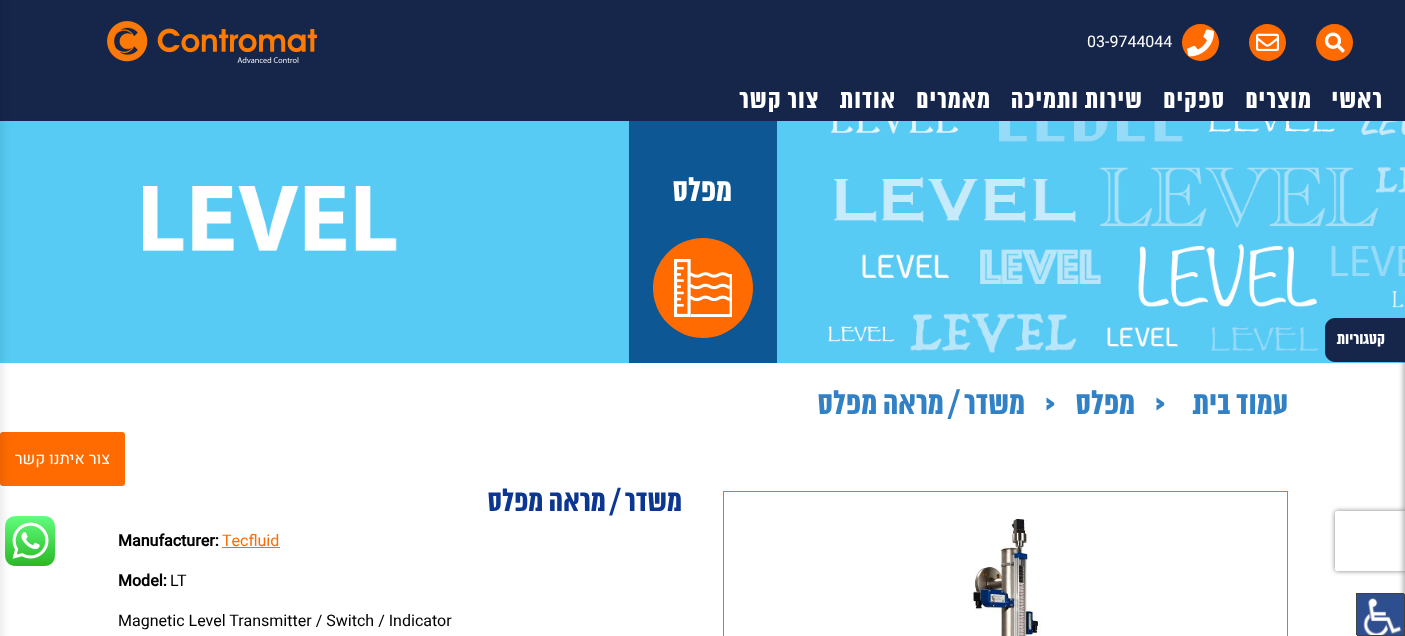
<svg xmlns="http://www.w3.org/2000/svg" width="1405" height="636">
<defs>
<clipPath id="clip1"><path d="M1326 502h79v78h-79zm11 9h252c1 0 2 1 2 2v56c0 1-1 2-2 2h-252c-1 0-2-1-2-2v-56c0-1 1-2 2-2z" clip-rule="evenodd"/></clipPath>
<clipPath id="clip2"><rect x="1357" y="594" width="48" height="42"/></clipPath>
</defs>
<rect width="100%" height="100%" fill="#fff"/>
<rect width="1405" height="121" fill="#16264a"/>
<circle cx="1334.5" cy="42.5" r="18.5" fill="#ff6b00"/>
<image x="1324" y="32" width="21" height="21" href="media/1.png"/>
<circle cx="1267.5" cy="42.5" r="18.5" fill="#ff6b00"/>
<image x="1256" y="33" width="23" height="18" href="media/2.png"/>
<circle cx="1200.5" cy="42.5" r="18.5" fill="#ff6b00"/>
<image x="1187" y="29" width="27" height="28" href="media/3.png"/>
<text x="1087" y="47" style="font-family:Heebo;font-size:16px;fill:#fff">03-9744044</text>
<text x="1383" y="108" style="font-family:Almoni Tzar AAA;font-size:26px;font-weight:bold;letter-spacing:1px;direction:rtl;fill:#fff">ראשי</text>
<text x="1312" y="108" style="font-family:Almoni Tzar AAA;font-size:26px;font-weight:bold;letter-spacing:1px;direction:rtl;fill:#fff">מוצרים</text>
<text x="1225" y="108" style="font-family:Almoni Tzar AAA;font-size:26px;font-weight:bold;letter-spacing:1px;direction:rtl;fill:#fff">ספקים</text>
<text x="1143" y="108" style="font-family:Almoni Tzar AAA;font-size:26px;font-weight:bold;letter-spacing:1px;direction:rtl;fill:#fff">שירות ותמיכה</text>
<text x="991" y="108" style="font-family:Almoni Tzar AAA;font-size:26px;font-weight:bold;letter-spacing:1px;direction:rtl;fill:#fff">מאמרים</text>
<text x="896" y="108" style="font-family:Almoni Tzar AAA;font-size:26px;font-weight:bold;letter-spacing:1px;direction:rtl;fill:#fff">אודות</text>
<text x="819" y="108" style="font-family:Almoni Tzar AAA;font-size:26px;font-weight:bold;letter-spacing:1px;direction:rtl;fill:#fff">צור קשר</text>
<image x="107" y="21" width="210" height="42" href="media/4.png"/>
<image x="0" y="121" width="1405" height="242" href="media/5.png"/>
<rect x="629" y="121" width="148" height="242" fill="#0e5795"/>
<text x="732" y="201" style="font-family:Almoni Tzar AAA;font-size:32px;font-weight:bold;direction:rtl;fill:#fff">מפלס</text>
<circle cx="703" cy="288" r="50" fill="#ff6b00"/>
<image x="674" y="259" width="58" height="58" href="media/6.png"/>
<rect y="432" width="125" height="54" rx="3" fill="#ff6b00"/>
<rect x="-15" y="-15" width="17" height="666" fill="#0000001a" filter="blur(5px)"/>
<rect x="1403" y="318" width="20" height="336" rx="10" fill="#0000004d" filter="blur(2.5px)"/>
<path d="M1335 318h70v44h-70c-5.5 0-10-4.5-10-10v-24c0-5.5 4.5-10 10-10z" fill="#16264a"/>
<text x="1385" y="344" style="font-family:Almoni Tzar AAA;font-size:16px;font-weight:bold;direction:rtl;fill:#fff">קטגוריות</text>
<rect x="723.5" y="491.5" width="564" height="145" fill="none" stroke="#ff6b00"/>
<image x="971" y="518" width="70" height="118" href="media/7.png"/>
<text x="682" y="511" style="font-family:Almoni Tzar AAA;font-size:30px;font-weight:bold;direction:rtl;fill:#0b3692">משדר / מראה מפלס</text>
<text x="222" y="546" style="font-family:Heebo;font-size:16px;fill:#ff6b00">Tecfluid</text>
<rect x="222" y="547" width="58" height="1" fill="#ff6b00"/>
<text x="118" y="546" style="font-family:Heebo;font-size:16px;font-weight:bold;fill:#000">Manufacturer:</text>
<text x="170" y="586" style="font-family:Heebo;font-size:16px;fill:#000">LT</text>
<text x="118" y="586" style="font-family:Heebo;font-size:16px;font-weight:bold;fill:#000">Model:</text>
<text x="118" y="626" style="font-family:Heebo;font-size:16px;fill:#000">Magnetic Level Transmitter / Switch / Indicator</text>
<text x="1288" y="414" style="font-family:Almoni Tzar AAA;font-size:32px;font-weight:bold;direction:rtl;fill:#3281c4">עמוד בית</text>
<text x="1155" y="414" style="font-family:Almoni Tzar AAA;font-size:32px;font-weight:bold;fill:#3281c4">&gt;</text>
<text x="1135" y="414" style="font-family:Almoni Tzar AAA;font-size:32px;font-weight:bold;direction:rtl;fill:#3281c4">מפלס</text>
<text x="1045" y="414" style="font-family:Almoni Tzar AAA;font-size:32px;font-weight:bold;fill:#3281c4">&gt;</text>
<text x="1025" y="414" style="font-family:Almoni Tzar AAA;font-size:32px;font-weight:bold;direction:rtl;fill:#3281c4">משדר / מראה מפלס</text>
<text x="110" y="464" style="font-family:Heebo;font-size:16px;direction:rtl;fill:#fff">צור איתנו קשר</text>
<image x="5" y="516" width="50" height="50" href="media/8.png"/>
<g clip-path="url(#clip1)">
<rect x="1335" y="511" width="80" height="60" rx="2" fill="#808080" filter="blur(2.5px)"/>
</g>
<path d="M1356 593v42h1v-41h47v-1z" fill="#404040"/>
<image x="1357" y="594" width="47" height="41" href="media/9.png"/>
<g clip-path="url(#clip2)">
<path d="M1258 495h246v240h-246zm98 98h48v42h-48z" fill="#404040" fill-rule="evenodd"/>
</g>
</svg>
